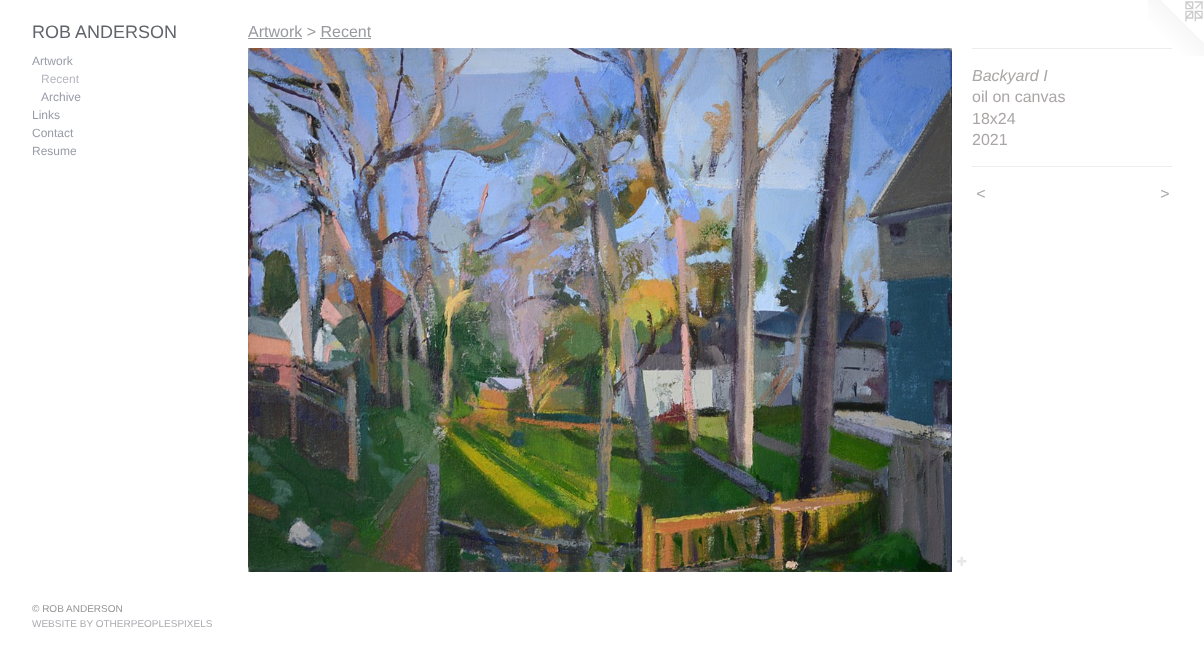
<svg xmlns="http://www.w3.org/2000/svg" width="1204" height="654">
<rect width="100%" height="100%" fill="#fff"/>
<text x="32" y="38" style="font-family:Liberation Sans;font-size:18px;fill:#61656b">ROB ANDERSON</text>
<text x="32" y="65" style="font-family:Liberation Sans;font-size:12px;fill:#999ca8">Artwork</text>
<text x="41" y="83" style="font-family:Liberation Sans;font-size:12px;fill:#b5b7bf">Recent</text>
<text x="41" y="101" style="font-family:Liberation Sans;font-size:12px;fill:#999ca8">Archive</text>
<text x="32" y="119" style="font-family:Liberation Sans;font-size:12px;fill:#999ca8">Links</text>
<text x="32" y="137" style="font-family:Liberation Sans;font-size:12px;fill:#999ca8">Contact</text>
<text x="32" y="155" style="font-family:Liberation Sans;font-size:12px;fill:#999ca8">Resume</text>
<text x="32" y="612" style="font-family:Liberation Sans;font-size:10px;fill:#979595">© ROB ANDERSON</text>
<text x="32" y="627" style="font-family:Liberation Sans;font-size:10px;fill:#abacb0">WEBSITE BY OTHERPEOPLESPIXELS</text>
<text x="248" y="37" style="font-family:Liberation Sans;font-size:16px;fill:#999a9f">Artwork &gt; Recent</text>
<rect x="248" y="38" width="54" height="1" fill="#999a9f"/>
<rect x="320" y="38" width="51" height="1" fill="#999a9f"/>
<image x="248" y="48" width="704" height="524" href="media/1.png"/>
<image x="957" y="556" width="10" height="10" href="media/2.png"/>
<image x="1148" y="0" width="56" height="56" href="media/3.png"/>
<rect x="972" y="48" width="200" height="1" fill="#eeeded"/>
<text x="972" y="81" style="font-family:Liberation Sans;font-size:16px;font-style:italic;fill:#aba6a6">Backyard I</text>
<text x="972" y="102" style="font-family:Liberation Sans;font-size:16px;fill:#aba6a6">oil on canvas</text>
<text x="972" y="124" style="font-family:Liberation Sans;font-size:16px;fill:#aba6a6">18x24</text>
<text x="972" y="145" style="font-family:Liberation Sans;font-size:16px;fill:#aba6a6">2021</text>
<rect x="972" y="166" width="200" height="1" fill="#eeeded"/>
<text x="976" y="199" style="font-family:Liberation Sans;font-size:16px;font-style:italic;letter-spacing:1px;fill:#aba6a6">&lt;</text>
<text x="1160" y="199" style="font-family:Liberation Sans;font-size:16px;font-style:italic;letter-spacing:1px;fill:#aba6a6">&gt;</text>
</svg>
